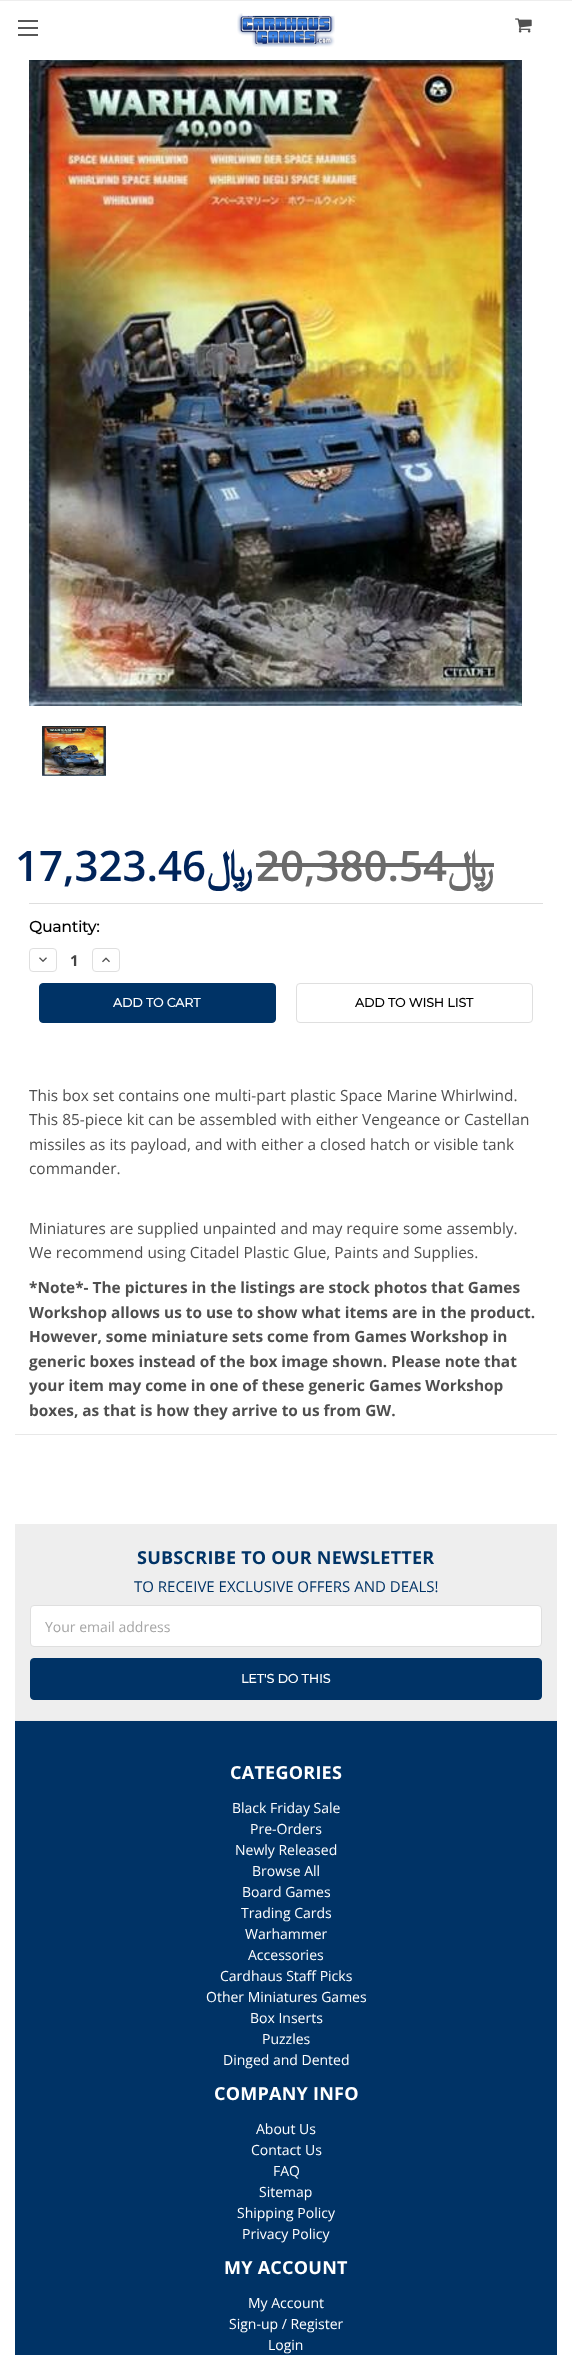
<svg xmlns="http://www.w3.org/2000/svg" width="572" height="2355">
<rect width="100%" height="100%" fill="#fff"/>
<rect width="572" height="1" fill="#eee"/>
<image x="515" y="18" width="17" height="15" href="media/1.png"/>
<rect x="18" y="27" width="20" height="2" fill="#575757"/>
<rect x="18" y="20" width="20" height="2" fill="#575757"/>
<rect x="18" y="34" width="20" height="2" fill="#575757"/>
<image x="237" y="13" width="98" height="34" href="media/2.png"/>
<image x="29" y="60" width="493" height="646" href="media/3.png"/>
<image x="42" y="726" width="64" height="50" href="media/4.png"/>
<text x="15" y="881" style="font-family:Open Sans;font-size:42px;font-weight:600;fill:#00245a">17,323.46</text>
<text x="253" y="881" style="font-family:FreeSerif;font-size:42px;font-weight:bold;direction:rtl;fill:#00245a">﷼</text>
<text x="256" y="881" style="font-family:Open Sans;font-size:42px;font-weight:600;fill:#6b6b6b">20,380.54</text>
<rect x="256" y="863" width="191" height="4" fill="#6b6b6b"/>
<rect x="447" y="863" width="47" height="4" fill="#6b6b6b"/>
<text x="494" y="881" style="font-family:FreeSerif;font-size:42px;font-weight:bold;direction:rtl;fill:#6b6b6b">﷼</text>
<rect x="29" y="903" width="514" height="1" fill="#dedede"/>
<text x="29" y="932" style="font-family:Montserrat;font-size:15.4px;font-weight:bold;fill:#000">Quantity:</text>
<rect x="29.5" y="948.5" width="27" height="23" rx="3.5" fill="none" stroke="#dfdfdf"/>
<image x="39" y="957" width="8" height="5" href="media/5.png"/>
<text x="70" y="966" style="font-family:Open Sans;font-size:15px;font-weight:bold;fill:#454545">1</text>
<rect x="92.5" y="948.5" width="27" height="23" rx="3.5" fill="none" stroke="#dfdfdf"/>
<image x="102" y="957" width="8" height="6" href="media/6.png"/>
<rect x="39.5" y="983.5" width="236" height="39" rx="3.5" fill="#036" stroke="#036"/>
<text x="113" y="1007" style="font-family:Montserrat;font-size:12.5px;font-weight:bold;fill:#fff">ADD TO CART</text>
<rect x="296.5" y="983.5" width="236" height="39" rx="3.5" fill="none" stroke="#dfdfdf"/>
<text x="355" y="1007" style="font-family:Montserrat;font-size:12.5px;font-weight:bold;fill:#000">ADD TO WISH LIST</text>
<text x="29" y="1101" style="font-family:Open Sans;font-size:15.4px;fill:#4f4f4f">This box set contains one multi-part plastic Space Marine Whirlwind.</text>
<text x="29" y="1125" style="font-family:Open Sans;font-size:15.4px;fill:#4f4f4f">This 85-piece kit can be assembled with either Vengeance or Castellan</text>
<text x="29" y="1150" style="font-family:Open Sans;font-size:15.4px;fill:#4f4f4f">missiles as its payload, and with either a closed hatch or visible tank</text>
<text x="29" y="1174" style="font-family:Open Sans;font-size:15.4px;fill:#4f4f4f">commander.</text>
<text x="29" y="1234" style="font-family:Open Sans;font-size:15.4px;fill:#4f4f4f">Miniatures are supplied unpainted and may require some assembly.</text>
<text x="29" y="1258" style="font-family:Open Sans;font-size:15.4px;fill:#4f4f4f">We recommend using Citadel Plastic Glue, Paints and Supplies.</text>
<text x="29" y="1293" style="font-family:Open Sans;font-size:15.4px;font-weight:bold;fill:#4f4f4f">*Note*- The pictures in the listings are stock photos that Games</text>
<text x="29" y="1318" style="font-family:Open Sans;font-size:15.4px;font-weight:bold;fill:#4f4f4f">Workshop allows us to use to show what items are in the product.</text>
<text x="29" y="1342" style="font-family:Open Sans;font-size:15.4px;font-weight:bold;fill:#4f4f4f">However, some miniature sets come from Games Workshop in</text>
<text x="29" y="1367" style="font-family:Open Sans;font-size:15.4px;font-weight:bold;fill:#4f4f4f">generic boxes instead of the box image shown. Please note that</text>
<text x="29" y="1391" style="font-family:Open Sans;font-size:15.4px;font-weight:bold;fill:#4f4f4f">your item may come in one of these generic Games Workshop</text>
<text x="29" y="1416" style="font-family:Open Sans;font-size:15.4px;font-weight:bold;fill:#4f4f4f">boxes, as that is how they arrive to us from GW.</text>
<rect x="15" y="1434" width="542" height="1" fill="#e8e8e8"/>
<rect x="15" y="1524" width="542" height="196" fill="#eee"/>
<text x="137" y="1564" style="font-family:Open Sans;font-size:18px;font-weight:bold;letter-spacing:0.25px;fill:#036">SUBSCRIBE TO OUR NEWSLETTER</text>
<text x="134" y="1592" style="font-family:Open Sans;font-size:15px;fill:#036">TO RECEIVE EXCLUSIVE OFFERS AND DEALS!</text>
<rect x="30.5" y="1605.5" width="511" height="41" rx="3.5" fill="#fff" stroke="#dfdfdf"/>
<text x="45" y="1632" style="font-family:Open Sans;font-size:14px;fill:#a5a5a5">Your email address</text>
<rect x="30.5" y="1658.5" width="511" height="41" rx="3.5" fill="#036" stroke="#036"/>
<text x="241" y="1683" style="font-family:Montserrat;font-size:12.5px;font-weight:bold;fill:#fff">LET'S DO THIS</text>
<rect x="15" y="1721" width="542" height="634" fill="#036"/>
<rect x="15" y="1720" width="542" height="1" fill="#e8e8e8"/>
<text x="230" y="1779" style="font-family:Open Sans;font-size:18px;font-weight:bold;letter-spacing:0.25px;fill:#fff">CATEGORIES</text>
<text x="232" y="1813" style="font-family:Open Sans;font-size:14px;fill:#fff">Black Friday Sale</text>
<text x="250" y="1834" style="font-family:Open Sans;font-size:14px;fill:#fff">Pre-Orders</text>
<text x="235" y="1855" style="font-family:Open Sans;font-size:14px;fill:#fff">Newly Released</text>
<text x="252" y="1876" style="font-family:Open Sans;font-size:14px;fill:#fff">Browse All</text>
<text x="242" y="1897" style="font-family:Open Sans;font-size:14px;fill:#fff">Board Games</text>
<text x="241" y="1918" style="font-family:Open Sans;font-size:14px;fill:#fff">Trading Cards</text>
<text x="245" y="1939" style="font-family:Open Sans;font-size:14px;fill:#fff">Warhammer</text>
<text x="248" y="1960" style="font-family:Open Sans;font-size:14px;fill:#fff">Accessories</text>
<text x="220" y="1981" style="font-family:Open Sans;font-size:14px;fill:#fff">Cardhaus Staff Picks</text>
<text x="206" y="2002" style="font-family:Open Sans;font-size:14px;fill:#fff">Other Miniatures Games</text>
<text x="250" y="2023" style="font-family:Open Sans;font-size:14px;fill:#fff">Box Inserts</text>
<text x="262" y="2044" style="font-family:Open Sans;font-size:14px;fill:#fff">Puzzles</text>
<text x="223" y="2065" style="font-family:Open Sans;font-size:14px;fill:#fff">Dinged and Dented</text>
<text x="214" y="2100" style="font-family:Open Sans;font-size:18px;font-weight:bold;letter-spacing:0.25px;fill:#fff">COMPANY INFO</text>
<text x="256" y="2134" style="font-family:Open Sans;font-size:14px;fill:#fff">About Us</text>
<text x="251" y="2155" style="font-family:Open Sans;font-size:14px;fill:#fff">Contact Us</text>
<text x="273" y="2176" style="font-family:Open Sans;font-size:14px;fill:#fff">FAQ</text>
<text x="259" y="2197" style="font-family:Open Sans;font-size:14px;fill:#fff">Sitemap</text>
<text x="237" y="2218" style="font-family:Open Sans;font-size:14px;fill:#fff">Shipping Policy</text>
<text x="242" y="2239" style="font-family:Open Sans;font-size:14px;fill:#fff">Privacy Policy</text>
<text x="224" y="2274" style="font-family:Open Sans;font-size:18px;font-weight:bold;letter-spacing:0.25px;fill:#fff">MY ACCOUNT</text>
<text x="248" y="2308" style="font-family:Open Sans;font-size:14px;fill:#fff">My Account</text>
<text x="229" y="2329" style="font-family:Open Sans;font-size:14px;fill:#fff">Sign-up / Register</text>
<text x="268" y="2350" style="font-family:Open Sans;font-size:14px;fill:#fff">Login</text>
</svg>
